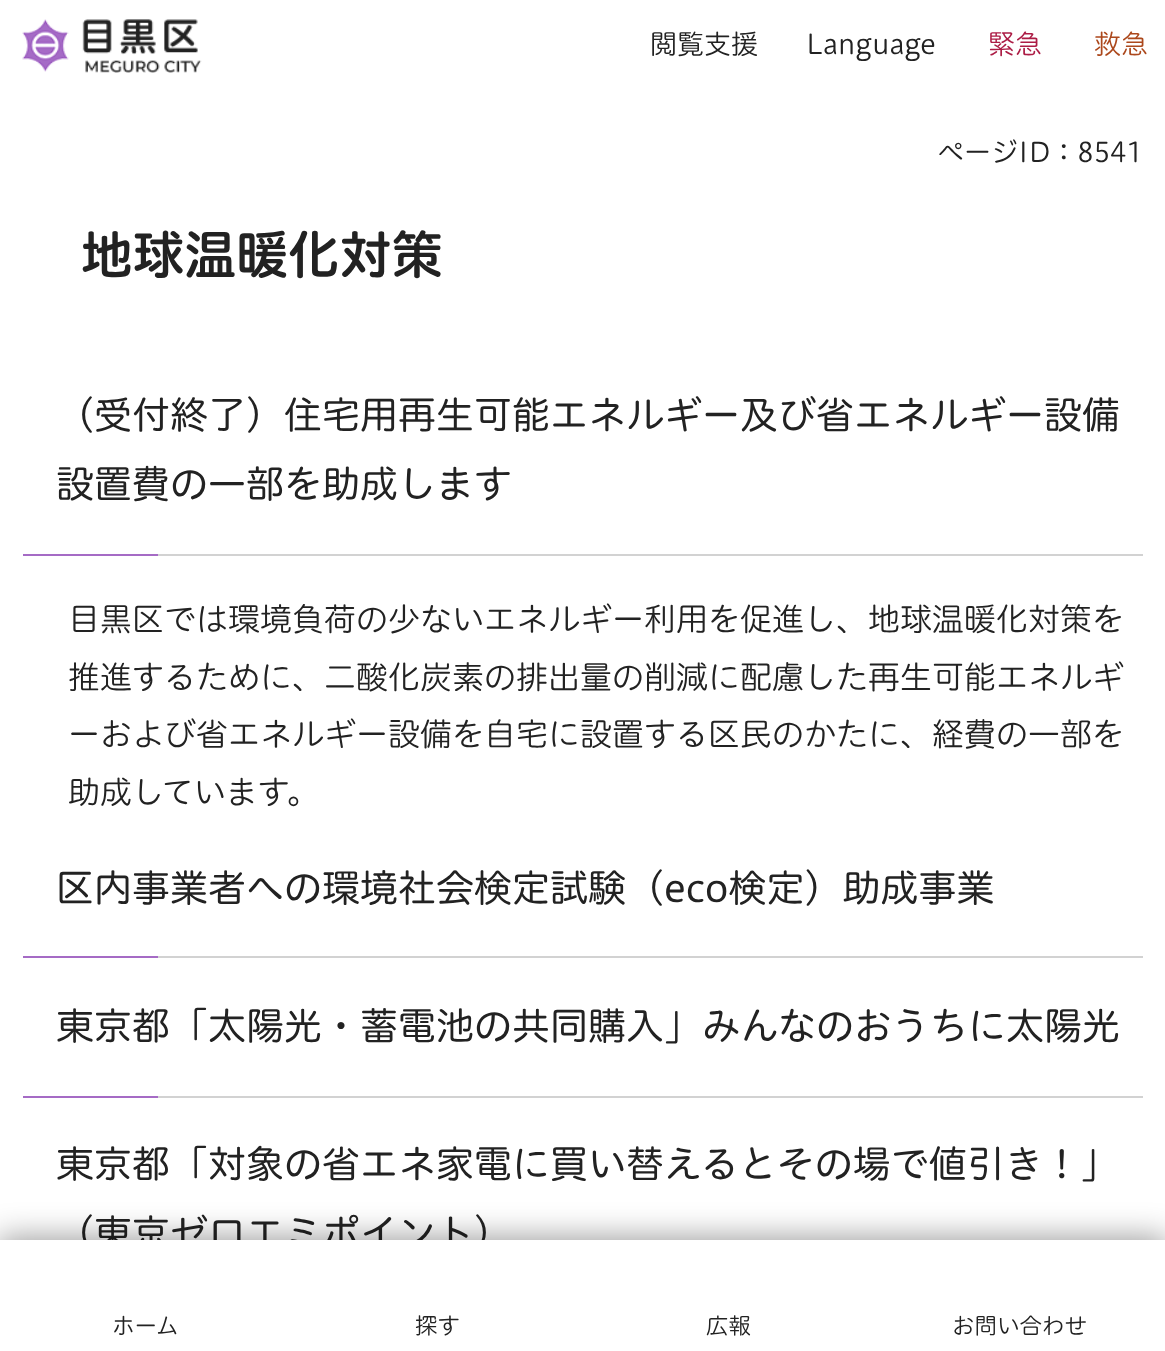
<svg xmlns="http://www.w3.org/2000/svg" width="1165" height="1351">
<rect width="100%" height="100%" fill="#fff"/>
<image x="22" y="19" width="180" height="54" href="media/1.png"/>
<text x="650" y="54" style="font-family:'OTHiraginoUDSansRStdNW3';font-size:27px;font-weight:300;fill:#222">閲覧支援</text>
<text x="806" y="54" style="font-family:'OTHiraginoUDSansRStdNW3';font-size:27px;font-weight:300;fill:#222">Language</text>
<text x="988" y="54" style="font-family:'OTHiraginoUDSansRStdNW3';font-size:27px;font-weight:300;fill:#ac1c45">緊急</text>
<text x="1094" y="54" style="font-family:'OTHiraginoUDSansRStdNW3';font-size:27px;font-weight:300;fill:#ac481c">救急</text>
<text x="937" y="162" style="font-family:'OTHiraginoUDSansRStdNW3';font-size:27px;font-weight:300;fill:#222">ページID：8541</text>
<text x="81" y="274" style="font-family:'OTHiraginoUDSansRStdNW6';font-size:51.75px;font-weight:600;fill:#222">地球温暖化対策</text>
<rect x="158" y="554" width="985" height="2" fill="#d2d2d2"/>
<text x="56" y="429" style="font-family:'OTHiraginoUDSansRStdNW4';font-size:38px;fill:#222">（受付終了）住宅用再生可能エネルギー及び省エネルギー設備</text>
<text x="56" y="498" style="font-family:'OTHiraginoUDSansRStdNW4';font-size:38px;fill:#222">設置費の一部を助成します</text>
<rect x="23" y="554" width="135" height="2" fill="#a56bc5"/>
<text x="68" y="631" style="font-family:'OTHiraginoUDSansRStdNW3';font-size:32px;font-weight:300;fill:#222">目黒区では環境負荷の少ないエネルギー利用を促進し、地球温暖化対策を</text>
<text x="68" y="689" style="font-family:'OTHiraginoUDSansRStdNW3';font-size:32px;font-weight:300;fill:#222">推進するために、二酸化炭素の排出量の削減に配慮した再生可能エネルギ</text>
<text x="68" y="746" style="font-family:'OTHiraginoUDSansRStdNW3';font-size:32px;font-weight:300;fill:#222">ーおよび省エネルギー設備を自宅に設置する区民のかたに、経費の一部を</text>
<text x="68" y="804" style="font-family:'OTHiraginoUDSansRStdNW3';font-size:32px;font-weight:300;fill:#222">助成しています。</text>
<rect x="158" y="956" width="985" height="2" fill="#d2d2d2"/>
<text x="56" y="902" style="font-family:'OTHiraginoUDSansRStdNW4';font-size:38px;fill:#222">区内事業者への環境社会検定試験（eco検定）助成事業</text>
<rect x="23" y="956" width="135" height="2" fill="#a56bc5"/>
<rect x="158" y="1096" width="985" height="2" fill="#d2d2d2"/>
<text x="56" y="1040" style="font-family:'OTHiraginoUDSansRStdNW4';font-size:38px;fill:#222">東京都「太陽光・蓄電池の共同購入」みんなのおうちに太陽光</text>
<rect x="23" y="1096" width="135" height="2" fill="#a56bc5"/>
<text x="56" y="1178" style="font-family:'OTHiraginoUDSansRStdNW4';font-size:38px;fill:#222">東京都「対象の省エネ家電に買い替えるとその場で値引き！」</text>
<text x="56" y="1247" style="font-family:'OTHiraginoUDSansRStdNW4';font-size:38px;fill:#222">（東京ゼロエミポイント）</text>
<rect x="-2" y="1238" width="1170" height="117" fill="#00000066" filter="blur(16px)"/>
<rect y="1240" width="1165" height="111" fill="#fff"/>
<text x="112" y="1334" style="font-family:'OTHiraginoUDSansRStdNW3';font-size:22.5px;font-weight:300;fill:#222">ホーム</text>
<text x="415" y="1334" style="font-family:'OTHiraginoUDSansRStdNW3';font-size:22.5px;font-weight:300;fill:#222">探す</text>
<text x="706" y="1334" style="font-family:'OTHiraginoUDSansRStdNW3';font-size:22.5px;font-weight:300;fill:#222">広報</text>
<text x="952" y="1334" style="font-family:'OTHiraginoUDSansRStdNW3';font-size:22.5px;font-weight:300;fill:#222">お問い合わせ</text>
</svg>
